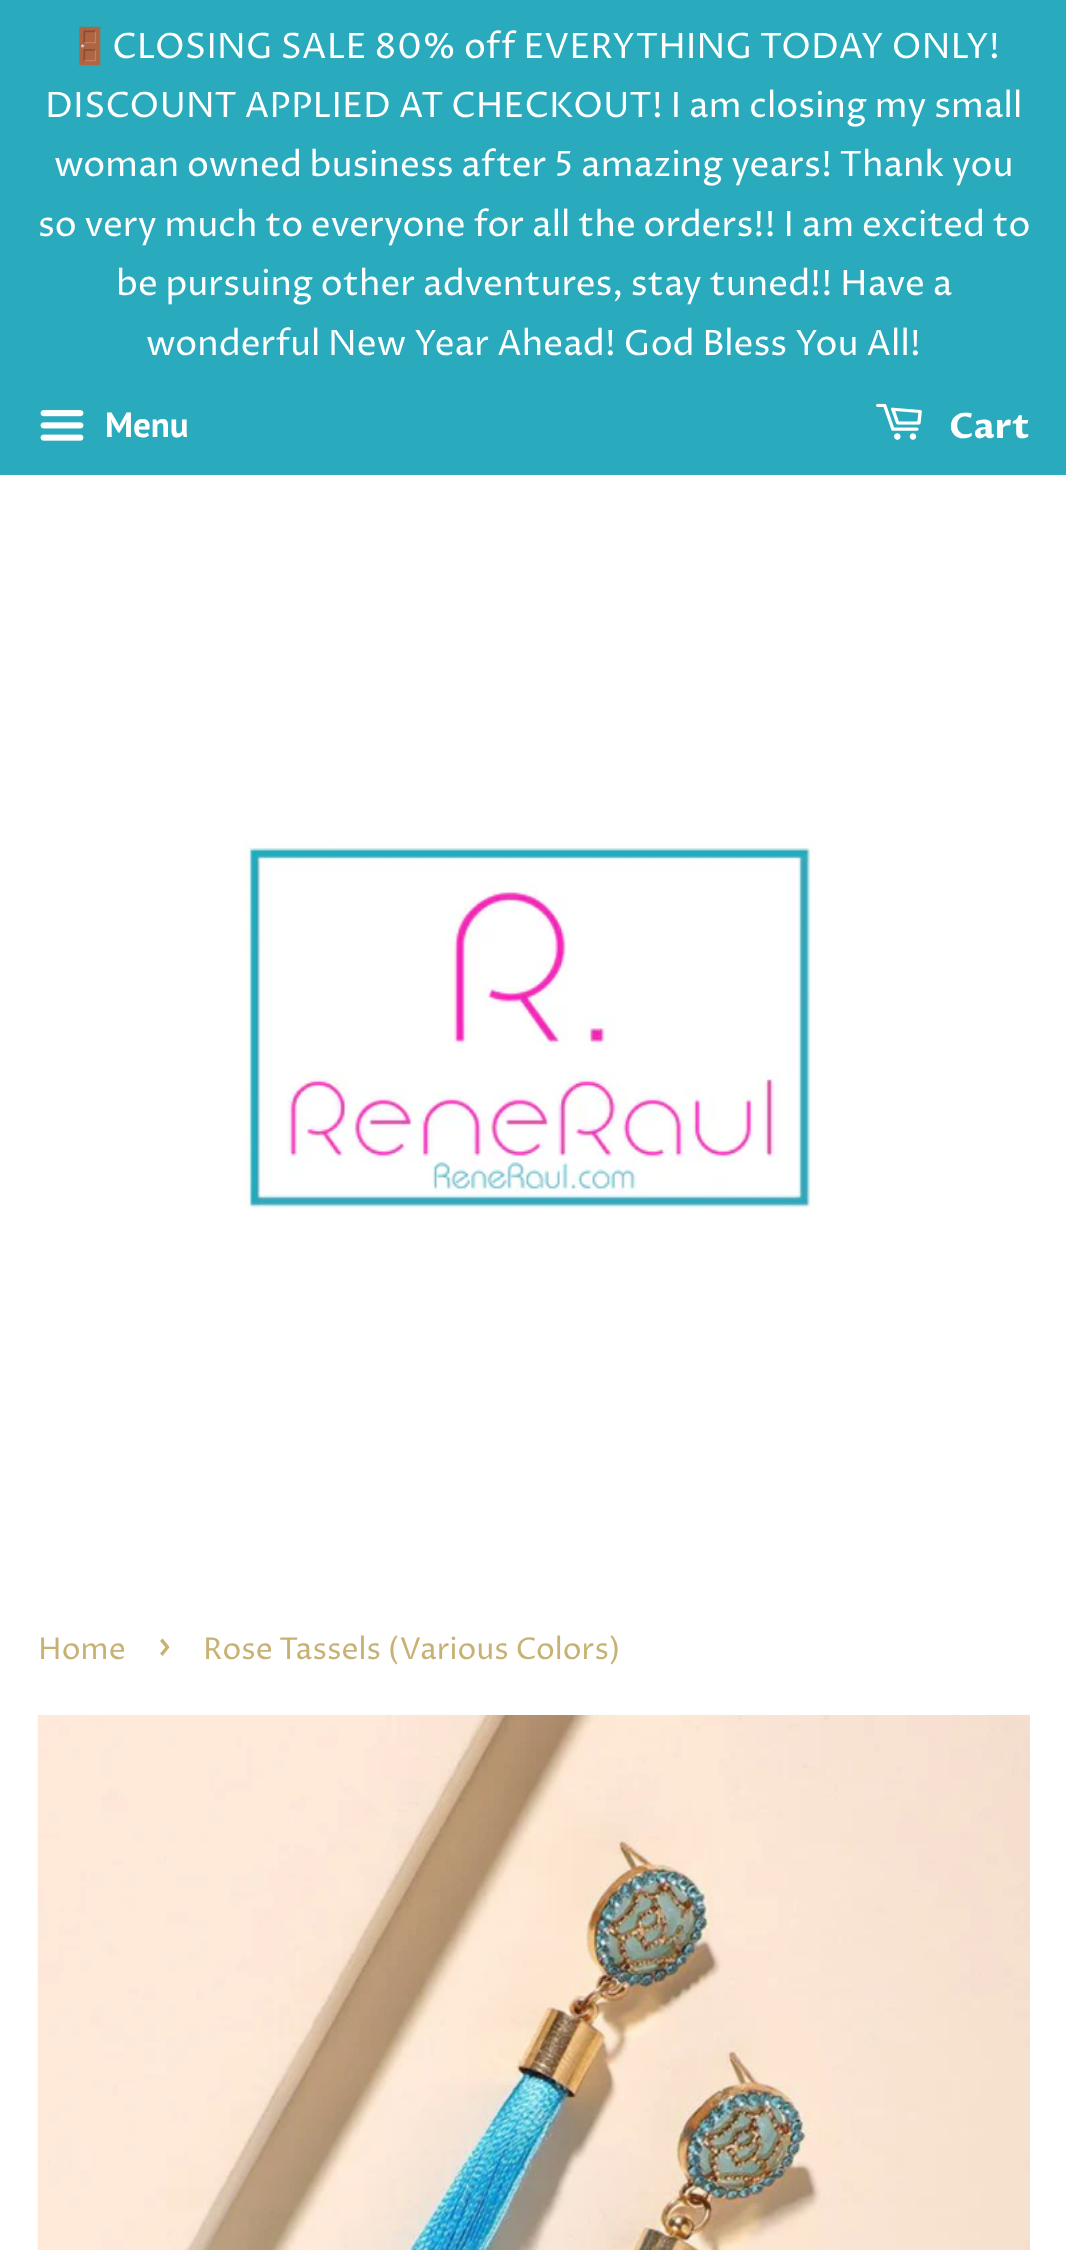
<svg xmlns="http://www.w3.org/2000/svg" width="1066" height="2250">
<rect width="100%" height="100%" fill="#fff"/>
<rect width="1066" height="475" fill="#29abbd"/>
<text x="68" y="58" style="font-family:Noto Color Emoji;font-size:35px;fill:#fff">🚪</text>
<text x="112" y="58" style="font-family:Proza Libre;font-size:35px;fill:#fff">CLOSING SALE 80% off EVERYTHING TODAY ONLY!</text>
<text x="45" y="117" style="font-family:Proza Libre;font-size:35px;fill:#fff">DISCOUNT APPLIED AT CHECKOUT! I am closing my small</text>
<text x="54" y="176" style="font-family:Proza Libre;font-size:35px;fill:#fff">woman owned business after 5 amazing years! Thank you</text>
<text x="38" y="236" style="font-family:Proza Libre;font-size:35px;fill:#fff">so very much to everyone for all the orders!! I am excited to</text>
<text x="116" y="295" style="font-family:Proza Libre;font-size:35px;fill:#fff">be pursuing other adventures, stay tuned!! Have a</text>
<text x="146" y="355" style="font-family:Proza Libre;font-size:35px;fill:#fff">wonderful New Year Ahead! God Bless You All!</text>
<image x="40" y="410" width="44" height="31" href="media/1.png"/>
<text x="105" y="437" style="font-family:PT Sans;font-size:35px;font-weight:bold;fill:#fff">Menu</text>
<image x="876" y="403" width="46" height="37" href="media/2.png"/>
<text x="949" y="438" style="font-family:Proza Libre;font-size:35px;font-weight:bold;fill:#fff">Cart</text>
<image x="244" y="840" width="573" height="369" href="media/3.png"/>
<text x="38" y="1659" style="font-family:Proza Libre;font-size:30px;fill:#c8b273">Home</text>
<text x="157" y="1659" style="font-family:Proza Libre;font-size:42px;fill:#c8b273">›</text>
<text x="203" y="1659" style="font-family:Proza Libre;font-size:30px;fill:#c8b273">Rose Tassels (Various Colors)</text>
<image x="37" y="1715" width="993" height="535" href="media/4.png"/>
</svg>
